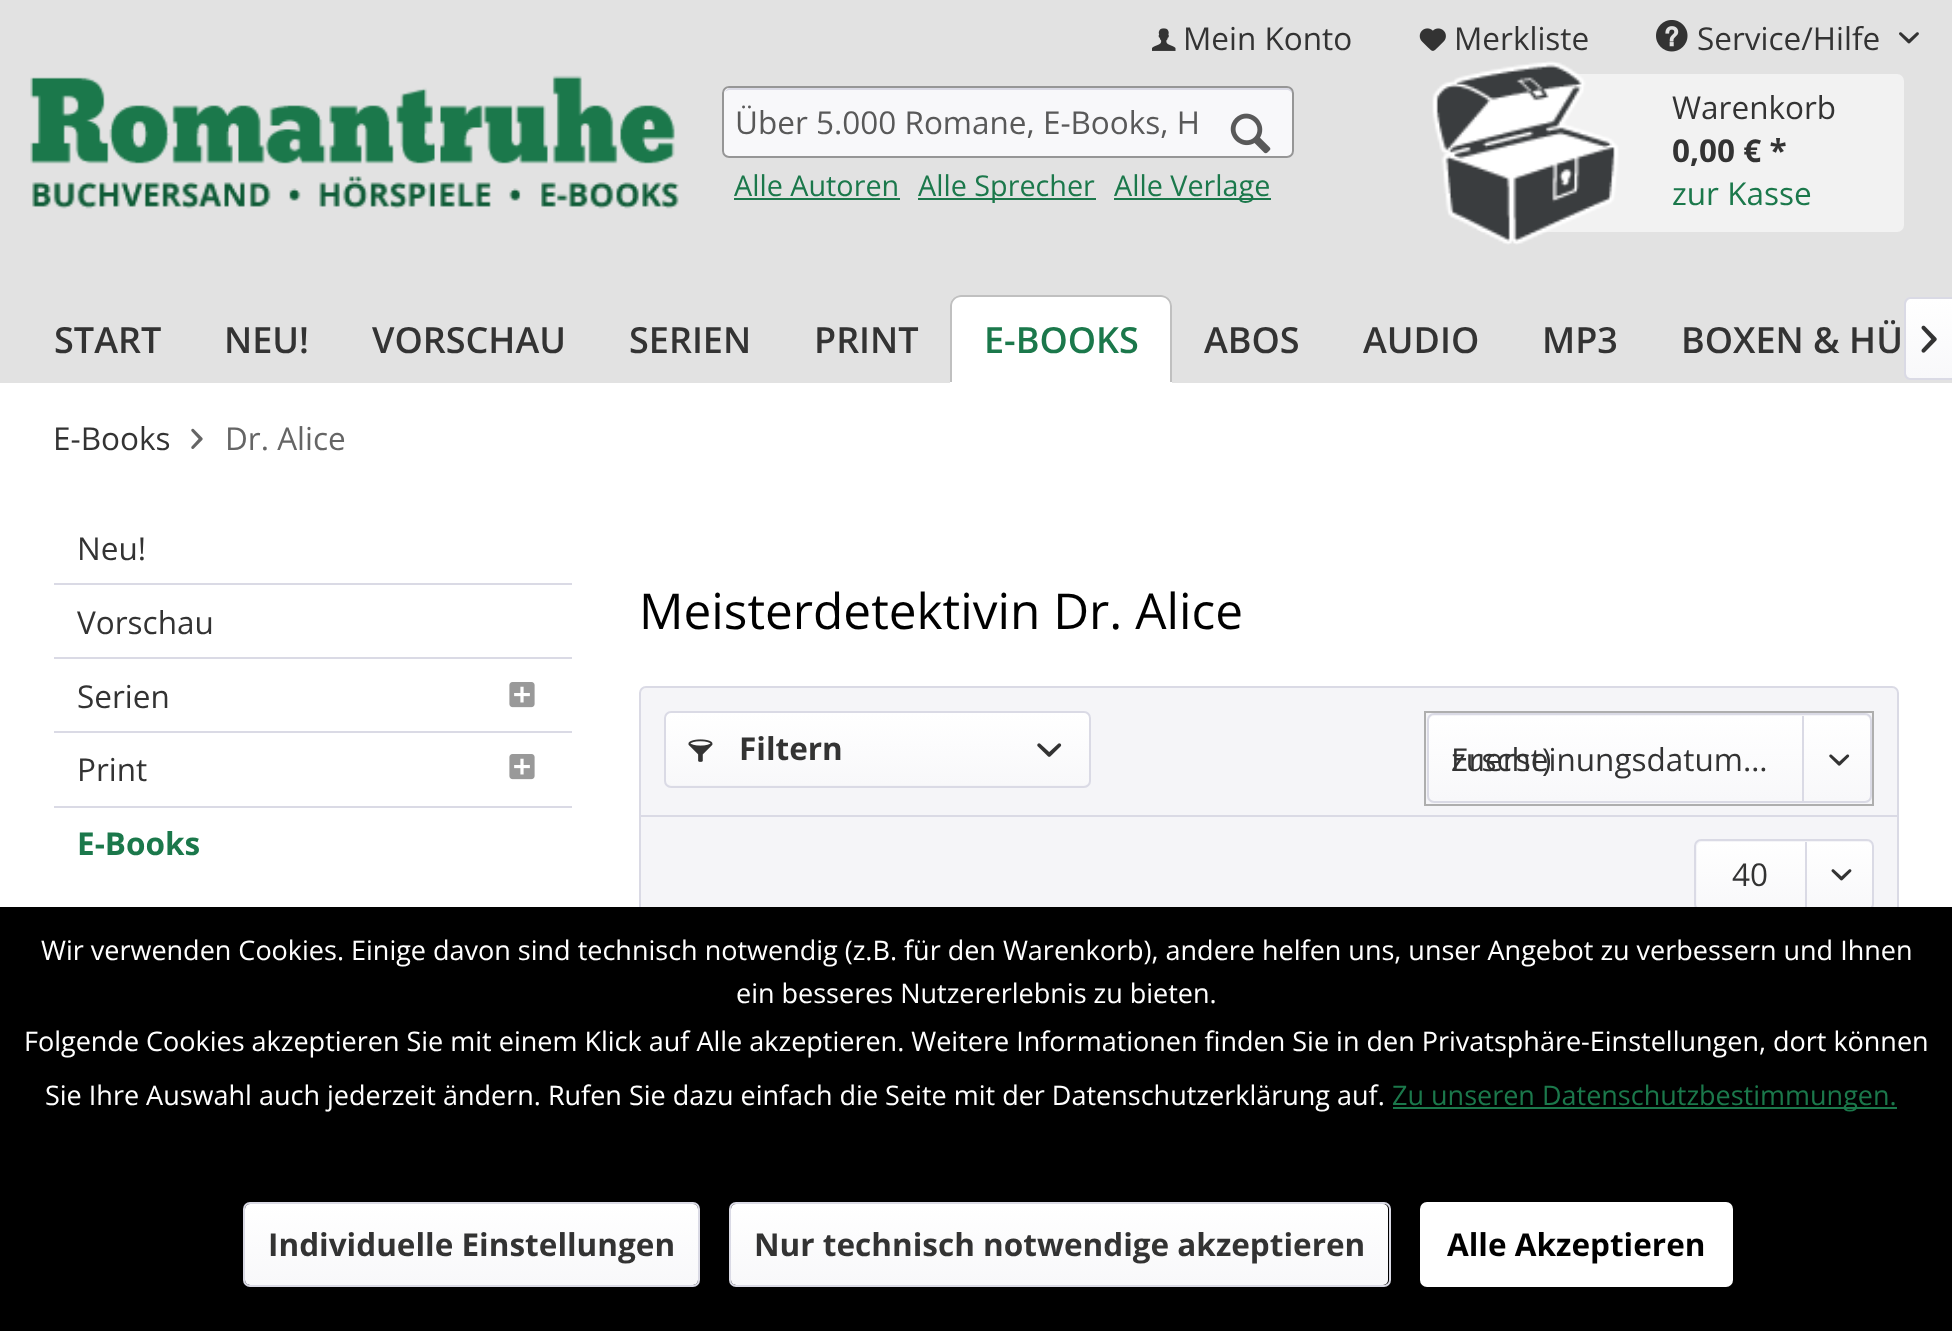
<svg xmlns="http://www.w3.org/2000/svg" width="1952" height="1331">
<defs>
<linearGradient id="g1" gradientUnits="userSpaceOnUse" x1="1929" y1="299" x2="1929" y2="378"><stop offset="0" stop-color="#fff"/><stop offset="1" stop-color="#f8f8fa"/></linearGradient>
<linearGradient id="g2" gradientUnits="userSpaceOnUse" x1="878" y1="713" x2="878" y2="785"><stop offset="0" stop-color="#fff"/><stop offset="1" stop-color="#f8f8fa"/></linearGradient>
<linearGradient id="g3" gradientUnits="userSpaceOnUse" x1="1649" y1="716" x2="1649" y2="801"><stop offset="0" stop-color="#fff"/><stop offset="1" stop-color="#f8f8fa"/></linearGradient>
<linearGradient id="g4" gradientUnits="userSpaceOnUse" x1="1784" y1="842" x2="1784" y2="909"><stop offset="0" stop-color="#fff"/><stop offset="1" stop-color="#f8f8fa"/></linearGradient>
<linearGradient id="g5" gradientUnits="userSpaceOnUse" x1="471" y1="1204" x2="471" y2="1285"><stop offset="0" stop-color="#fff"/><stop offset="1" stop-color="#f8f8fa"/></linearGradient>
<linearGradient id="g6" gradientUnits="userSpaceOnUse" x1="1060" y1="1204" x2="1060" y2="1285"><stop offset="0" stop-color="#fff"/><stop offset="1" stop-color="#f8f8fa"/></linearGradient>
</defs>
<rect width="100%" height="100%" fill="#fff"/>
<rect width="1952" height="383" fill="#e2e2e2"/>
<image x="1152" y="28" width="24" height="23" href="media/1.png"/>
<text x="1183" y="50" style="font-family:Open Sans;font-size:31.5px;fill:#333">Mein Konto</text>
<image x="1419" y="28" width="27" height="23" href="media/2.png"/>
<text x="1454" y="50" style="font-family:Open Sans;font-size:31.5px;fill:#333">Merkliste</text>
<image x="1656" y="20" width="32" height="32" href="media/3.png"/>
<text x="1697" y="50" style="font-family:Open Sans;font-size:31.5px;fill:#333">Service/Hilfe</text>
<image x="1899" y="32" width="20" height="12" href="media/4.png"/>
<image x="30" y="75" width="649" height="134" href="media/5.png"/>
<rect x="722" y="86" width="572" height="72" rx="7" fill="#f8f8fa"/>
<path d="M729 90h558c2 0 5 2 5 4v-1c0-3-2-5-5-5h-557c-2 0-4 2-5 4c1-1 3-2 4-2z" fill="#dadae5"/>
<rect x="723" y="87" width="570" height="70" rx="6" fill="none" stroke="#969696" stroke-width="2"/>
<text x="735" y="134" style="font-family:Open Sans;font-size:31.5px;fill:#595959">Über 5.000 Romane, E-Books, H</text>
<image x="1230" y="113" width="41" height="41" href="media/6.png"/>
<text x="734" y="196" style="font-family:Open Sans;font-size:28.75px;fill:#1b784b">Alle Autoren</text>
<rect x="734" y="198" width="166" height="2" fill="#1b784b"/>
<rect x="918" y="198" width="178" height="2" fill="#1b784b"/>
<text x="918" y="196" style="font-family:Open Sans;font-size:28.75px;fill:#1b784b">Alle Sprecher</text>
<rect x="1114" y="198" width="157" height="2" fill="#1b784b"/>
<text x="1114" y="196" style="font-family:Open Sans;font-size:28.75px;fill:#1b784b">Alle Verlage</text>
<rect x="1476" y="74" width="428" height="158" rx="7" fill="#f2f2f2"/>
<image x="1432" y="61" width="187" height="184" href="media/7.png"/>
<text x="1672" y="119" style="font-family:Open Sans;font-size:31.5px;fill:#333">Warenkorb</text>
<text x="1672" y="162" style="font-family:Open Sans;font-size:31.5px;font-weight:bold;fill:#333">0,00 € *</text>
<text x="1672" y="205" style="font-family:Open Sans;font-size:31.5px;fill:#1b784b">zur Kasse</text>
<text x="54" y="353" style="font-family:Open Sans;font-size:36px;font-weight:600;fill:#333">START</text>
<text x="224" y="353" style="font-family:Open Sans;font-size:36px;font-weight:600;fill:#333">NEU!</text>
<text x="372" y="353" style="font-family:Open Sans;font-size:36px;font-weight:600;fill:#333">VORSCHAU</text>
<text x="629" y="353" style="font-family:Open Sans;font-size:36px;font-weight:600;fill:#333">SERIEN</text>
<text x="814" y="353" style="font-family:Open Sans;font-size:36px;font-weight:600;fill:#333">PRINT</text>
<path d="M961 295h200c6 0 11 5 11 11v77h-222v-77c0-6 5-11 11-11z" fill="#fff"/>
<path d="M961 295h200c6 0 11 5 11 11v76h-222v-76c0-6 5-11 11-11zm0 2h200c5 0 9 4 9 9v76h-218v-76c0-5 4-9 9-9z" fill="#c0c0c0" fill-rule="evenodd"/>
<text x="984" y="353" style="font-family:Open Sans;font-size:36px;font-weight:600;fill:#1b784b">E-BOOKS</text>
<text x="1204" y="353" style="font-family:Open Sans;font-size:36px;font-weight:600;fill:#333">ABOS</text>
<text x="1363" y="353" style="font-family:Open Sans;font-size:36px;font-weight:600;fill:#333">AUDIO</text>
<text x="1542" y="353" style="font-family:Open Sans;font-size:36px;font-weight:600;fill:#333">MP3</text>
<text x="1681" y="353" style="font-family:Open Sans;font-size:36px;font-weight:600;fill:#333">BOXEN &amp; HÜ</text>
<path d="M1911 299h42v79h-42c-3 0-5-2-5-5v-69c0-3 2-5 5-5z" fill="url(#g1)"/>
<path d="M1910 297h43v83h-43c-3 0-6-3-6-6v-70c0-4 3-7 6-7zm0 2h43v79h-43c-2 0-4-2-4-4v-70c0-3 2-5 4-5z" fill="#dadae5" fill-rule="evenodd"/>
<image x="1921" y="325" width="16" height="28" href="media/8.png"/>
<text x="53" y="450" style="font-family:Open Sans;font-size:31.5px;fill:#333">E-Books</text>
<image x="191" y="428" width="12" height="21" href="media/9.png"/>
<text x="225" y="450" style="font-family:Open Sans;font-size:31.5px;fill:#656565">Dr. Alice</text>
<rect x="54" y="583" width="518" height="2" fill="#dadae5"/>
<text x="77" y="560" style="font-family:Open Sans;font-size:31.5px;fill:#333">Neu!</text>
<rect x="54" y="657" width="518" height="2" fill="#dadae5"/>
<text x="77" y="634" style="font-family:Open Sans;font-size:31.5px;fill:#333">Vorschau</text>
<rect x="54" y="731" width="518" height="2" fill="#dadae5"/>
<text x="77" y="708" style="font-family:Open Sans;font-size:31.5px;fill:#333">Serien</text>
<image x="509" y="682" width="26" height="26" href="media/10.png"/>
<rect x="54" y="806" width="518" height="2" fill="#dadae5"/>
<text x="77" y="781" style="font-family:Open Sans;font-size:31.5px;fill:#333">Print</text>
<image x="509" y="754" width="26" height="26" href="media/10.png"/>
<text x="77" y="855" style="font-family:Open Sans;font-size:31.5px;font-weight:bold;fill:#1b784b">E-Books</text>
<text x="639" y="629" style="font-family:Open Sans;font-size:49.5px;fill:#000">Meisterdetektivin Dr. Alice</text>
<rect x="640" y="687" width="1258" height="248" rx="6" fill="#f5f5f8" stroke="#dadae5" stroke-width="2"/>
<rect x="666" y="713" width="423" height="72" rx="5" fill="url(#g2)"/>
<rect x="665" y="712" width="425" height="75" rx="6" fill="none" stroke="#dadae5" stroke-width="2"/>
<image x="688" y="739" width="25" height="23" href="media/11.png"/>
<text x="739" y="760" style="font-family:Open Sans;font-size:31.5px;font-weight:bold;fill:#333">Filtern</text>
<image x="1037" y="743" width="25" height="14" href="media/12.png"/>
<rect x="1425" y="712" width="448" height="93" fill="none" stroke="#aeaeae" stroke-width="2"/>
<rect x="1429" y="716" width="441" height="85" rx="5" fill="url(#g3)"/>
<rect x="1428" y="714" width="443" height="88" rx="6" fill="none" stroke="#dadae5" stroke-width="2"/>
<text x="1451" y="771" word-spacing="50" style="font-family:Open Sans;font-size:31.5px;fill:#333">Erscheinungsdatum…</text>
<text x="1451" y="771" style="font-family:Open Sans;font-size:31.5px;fill:#333">zuerst)</text>
<rect x="1802" y="716" width="2" height="87" fill="#dadae5"/>
<image x="1829" y="754" width="21" height="12" href="media/13.png"/>
<rect x="641" y="815" width="1256" height="2" fill="#dadae5"/>
<rect x="1697" y="842" width="175" height="67" rx="5" fill="url(#g4)"/>
<rect x="1695" y="840" width="178" height="70" rx="6" fill="none" stroke="#dadae5" stroke-width="2"/>
<text x="1732" y="886" style="font-family:Open Sans;font-size:31.5px;fill:#333">40</text>
<rect x="1805" y="842" width="2" height="69" fill="#dadae5"/>
<image x="1831" y="869" width="21" height="12" href="media/14.png"/>
<rect y="907" width="1952" height="424" fill="#000"/>
<text x="41" y="960" style="font-family:Open Sans;font-size:27px;fill:#fff">Wir verwenden Cookies. Einige davon sind technisch notwendig (z.B. für den Warenkorb), andere helfen uns, unser Angebot zu verbessern und Ihnen</text>
<text x="736" y="1003" style="font-family:Open Sans;font-size:27px;fill:#fff">ein besseres Nutzererlebnis zu bieten.</text>
<text x="24" y="1051" style="font-family:Open Sans;font-size:27px;fill:#fff">Folgende Cookies akzeptieren Sie mit einem Klick auf Alle akzeptieren. Weitere Informationen finden Sie in den Privatsphäre-Einstellungen, dort können</text>
<text x="45" y="1105" style="font-family:Open Sans;font-size:27px;fill:#fff">Sie Ihre Auswahl auch jederzeit ändern. Rufen Sie dazu einfach die Seite mit der Datenschutzerklärung auf.</text>
<rect x="1393" y="1107" width="504" height="2" fill="#1b784b"/>
<text x="1392" y="1105" style="font-family:Open Sans;font-size:27px;fill:#1b784b">Zu unseren Datenschutzbestimmungen.</text>
<rect x="245" y="1204" width="453" height="81" rx="5" fill="url(#g5)"/>
<rect x="244" y="1203" width="455" height="83" rx="6" fill="none" stroke="#dadae5" stroke-width="2"/>
<text x="268" y="1256" style="font-family:Open Sans;font-size:31.5px;font-weight:bold;fill:#333">Individuelle Einstellungen</text>
<rect x="731" y="1204" width="657" height="81" rx="5" fill="url(#g6)"/>
<rect x="730" y="1203" width="660" height="83" rx="6" fill="none" stroke="#dadae5" stroke-width="2"/>
<text x="754" y="1256" style="font-family:Open Sans;font-size:31.5px;font-weight:bold;fill:#333">Nur technisch notwendige akzeptieren</text>
<rect x="1420" y="1202" width="313" height="85" rx="7" fill="#fff"/>
<text x="1447" y="1256" style="font-family:Open Sans;font-size:31.5px;font-weight:bold;fill:#000">Alle Akzeptieren</text>
</svg>
